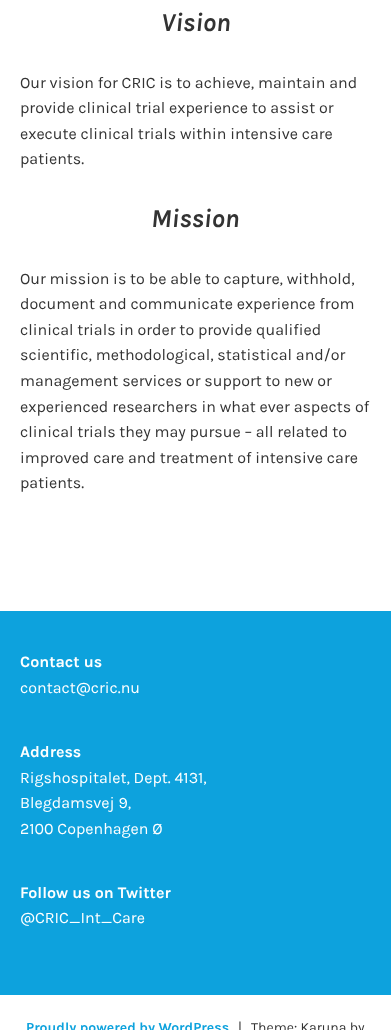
<svg xmlns="http://www.w3.org/2000/svg" width="391" height="1030">
<rect width="100%" height="100%" fill="#fff"/>
<text x="161" y="31" style="font-family:Karla;font-size:26px;font-weight:bold;font-style:italic;fill:#333">Vision</text>
<text x="20" y="88" style="font-family:Karla;font-size:16px;fill:#333">Our vision for CRIC is to achieve, maintain and</text>
<text x="20" y="113" style="font-family:Karla;font-size:16px;fill:#333">provide clinical trial experience to assist or</text>
<text x="20" y="139" style="font-family:Karla;font-size:16px;fill:#333">execute clinical trials within intensive care</text>
<text x="20" y="164" style="font-family:Karla;font-size:16px;fill:#333">patients.</text>
<text x="151" y="227" style="font-family:Karla;font-size:26px;font-weight:bold;font-style:italic;fill:#333">Mission</text>
<text x="20" y="284" style="font-family:Karla;font-size:16px;fill:#333">Our mission is to be able to capture, withhold,</text>
<text x="20" y="309" style="font-family:Karla;font-size:16px;fill:#333">document and communicate experience from</text>
<text x="20" y="335" style="font-family:Karla;font-size:16px;fill:#333">clinical trials in order to provide qualified</text>
<text x="20" y="360" style="font-family:Karla;font-size:16px;fill:#333">scientific, methodological, statistical and/or</text>
<text x="20" y="386" style="font-family:Karla;font-size:16px;fill:#333">management services or support to new or</text>
<text x="20" y="412" style="font-family:Karla;font-size:16px;fill:#333">experienced researchers in what ever aspects of</text>
<text x="20" y="437" style="font-family:Karla;font-size:16px;fill:#333">clinical trials they may pursue – all related to</text>
<text x="20" y="463" style="font-family:Karla;font-size:16px;fill:#333">improved care and treatment of intensive care</text>
<text x="20" y="488" style="font-family:Karla;font-size:16px;fill:#333">patients.</text>
<rect y="611" width="391" height="384" fill="#0da2dd"/>
<text x="20" y="667" style="font-family:Karla;font-size:16px;font-weight:bold;fill:#fff">Contact us</text>
<text x="20" y="693" style="font-family:Karla;font-size:16px;fill:#fff">contact@cric.nu</text>
<text x="20" y="757" style="font-family:Karla;font-size:16px;font-weight:bold;fill:#fff">Address</text>
<text x="20" y="783" style="font-family:Karla;font-size:16px;fill:#fff">Rigshospitalet, Dept. 4131,</text>
<text x="20" y="808" style="font-family:Karla;font-size:16px;fill:#fff">Blegdamsvej 9,</text>
<text x="20" y="834" style="font-family:Karla;font-size:16px;fill:#fff">2100 Copenhagen Ø</text>
<text x="20" y="898" style="font-family:Karla;font-size:16px;font-weight:bold;fill:#fff">Follow us on Twitter</text>
<text x="20" y="923" style="font-family:Karla;font-size:16px;fill:#fff">@CRIC_Int_Care</text>
<text x="26" y="1032" style="font-family:Karla;font-size:14px;font-weight:bold;fill:#0da2dd">Proudly powered by WordPress</text>
<text x="238" y="1032" style="font-family:Karla;font-size:14px;fill:#333">|</text>
<text x="251" y="1032" style="font-family:Karla;font-size:14px;fill:#333">Theme: Karuna by</text>
</svg>
